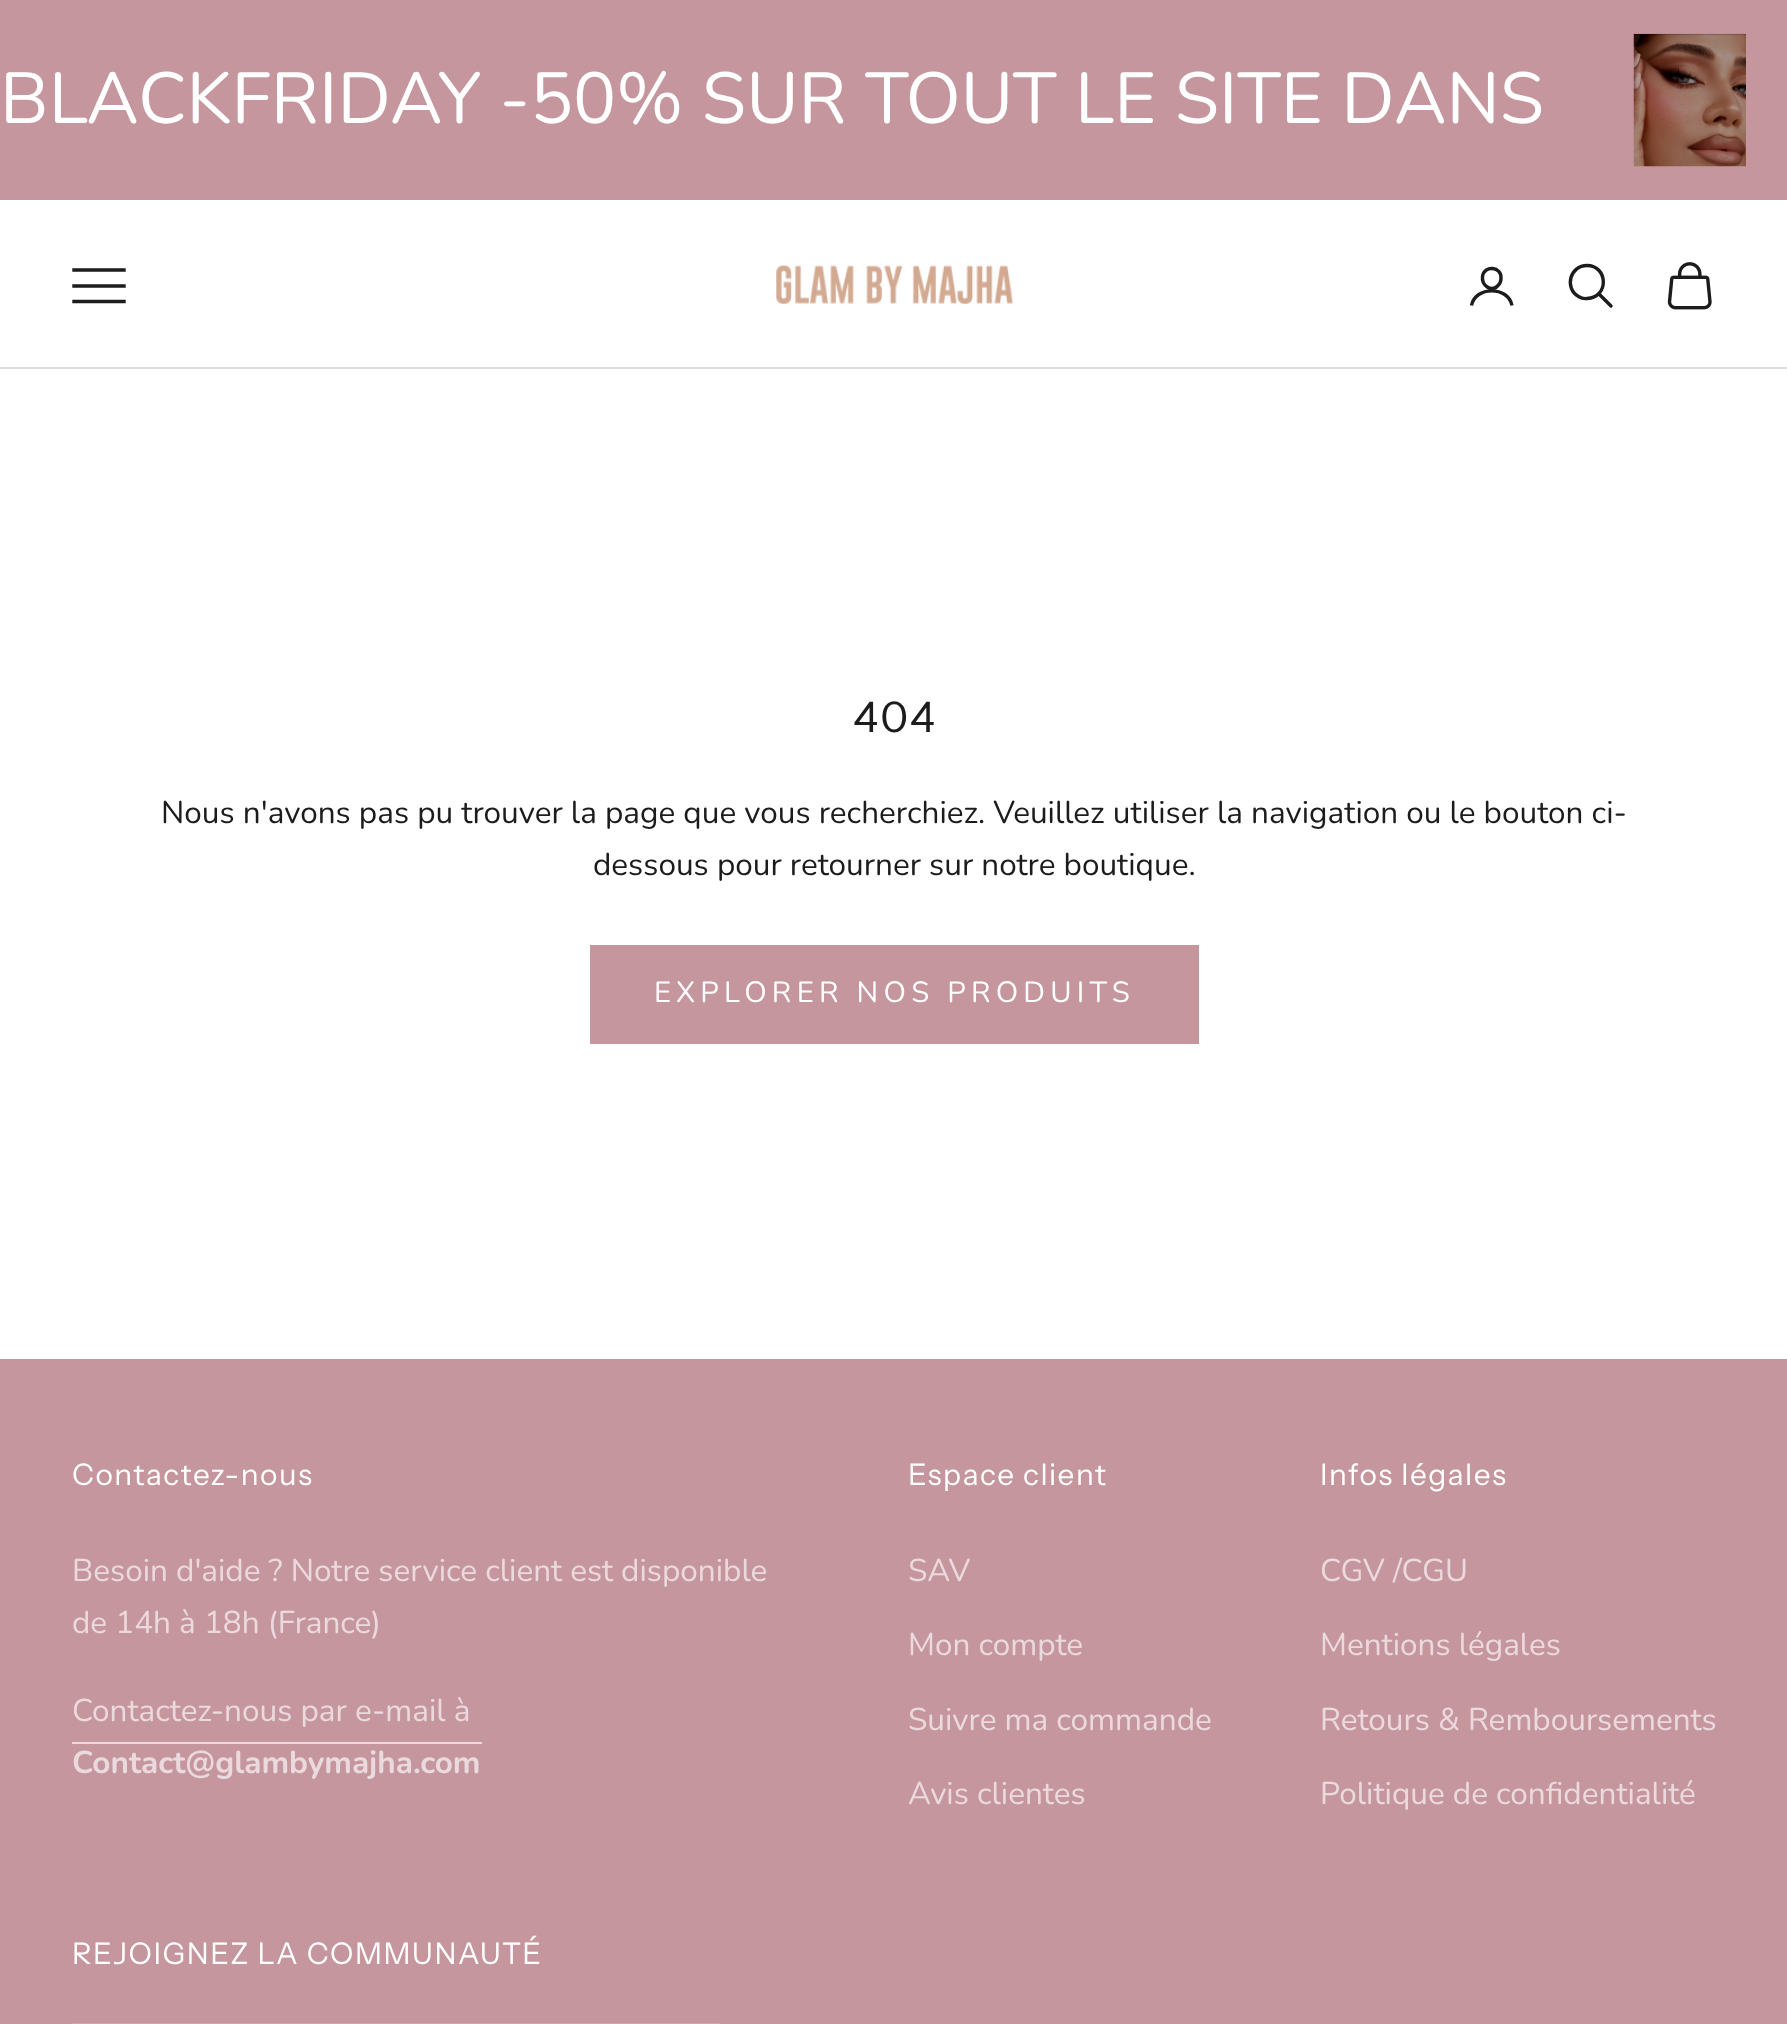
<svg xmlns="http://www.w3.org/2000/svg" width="1787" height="2024">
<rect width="100%" height="100%" fill="#fff"/>
<rect width="1787" height="200" fill="#c5969d"/>
<text x="0" y="123" style="font-family:Nunito;font-size:72px;fill:#fff">BLACKFRIDAY -50% SUR TOUT LE SITE DANS</text>
<image x="1633" y="33" width="113" height="134" href="media/1.png"/>
<rect y="367" width="1787" height="2" fill="#ddd"/>
<path d="M74 301.5h50m-50-15.5h50m-50-16h50" fill="none" stroke="#1c1c1c" stroke-width="3.4" stroke-linecap="square"/>
<image x="776" y="265" width="237" height="39" href="media/2.png"/>
<path d="M1501 278.5c0 2.5-1 5-3 7c-7 7.5-16.5-.5-15.5-9c1.5-12 19.5-10 18.5 2z" fill="none" stroke="#1c1c1c" stroke-width="3.4" stroke-linecap="round" stroke-linejoin="round"/>
<path d="M1471.5 305.5c3.5-19.5 37-19.5 40.5 0" fill="none" stroke="#1c1c1c" stroke-width="3.4"/>
<path d="M1587 265.5c-17 0-23 22.5-8.5 31c2.5 1.5 5.5 2.5 8.5 2c22.5-1 21-33 0-33z" fill="none" stroke="#1c1c1c" stroke-width="3.4"/>
<path d="M1599.5 294.5l11.5 11.5" fill="none" stroke="#1c1c1c" stroke-width="3.4" stroke-linecap="round"/>
<image x="1667" y="262" width="45" height="48" href="media/3.png"/>
<text x="853" y="732" style="font-family:Instrument Sans;font-size:42px;letter-spacing:2px;fill:#1c1c1c">404</text>
<text x="161" y="823" style="font-family:Nunito;font-size:31.5px;fill:#1c1c1c">Nous n'avons pas pu trouver la page que vous recherchiez. Veuillez utiliser la navigation ou le bouton ci-</text>
<text x="593" y="875" style="font-family:Nunito;font-size:31.5px;fill:#1c1c1c">dessous pour retourner sur notre boutique.</text>
<rect x="591" y="946" width="607" height="97" fill="#c5969d" stroke="#c5969d" stroke-width="2"/>
<text x="654" y="1002" style="font-family:Nunito;font-size:29.25px;letter-spacing:5.25px;fill:#fff">EXPLORER NOS PRODUITS</text>
<rect y="1359" width="1787" height="665" fill="#c5969d"/>
<text x="72" y="1485" style="font-family:Instrument Sans;font-size:29.75px;letter-spacing:1.5px;fill:#fff">Contactez-nous</text>
<text x="72" y="1581" style="font-family:Nunito;font-size:31.5px;fill:#ebdadd">Besoin d'aide ? Notre service client est disponible</text>
<text x="72" y="1633" style="font-family:Nunito;font-size:31.5px;fill:#ebdadd">de 14h à 18h (France)</text>
<text x="72" y="1721" style="font-family:Nunito;font-size:31.5px;fill:#ebdadd">Contactez-nous par e-mail à</text>
<text x="72" y="1773" style="font-family:Nunito;font-size:31.5px;font-weight:bold;fill:#ebdadd">Contact@glambymajha.com</text>
<rect x="72" y="1742" width="410" height="2" fill="#ebdadd"/>
<text x="908" y="1485" style="font-family:Instrument Sans;font-size:29.75px;letter-spacing:1.5px;fill:#fff">Espace client</text>
<text x="908" y="1581" style="font-family:Nunito;font-size:31.5px;fill:#ebdadd">SAV</text>
<text x="908" y="1655" style="font-family:Nunito;font-size:31.5px;fill:#ebdadd">Mon compte</text>
<text x="908" y="1730" style="font-family:Nunito;font-size:31.5px;fill:#ebdadd">Suivre ma commande</text>
<text x="908" y="1804" style="font-family:Nunito;font-size:31.5px;fill:#ebdadd">Avis clientes</text>
<text x="1320" y="1485" style="font-family:Instrument Sans;font-size:29.75px;letter-spacing:1.5px;fill:#fff">Infos légales</text>
<text x="1320" y="1581" style="font-family:Nunito;font-size:31.5px;fill:#ebdadd">CGV /CGU</text>
<text x="1320" y="1655" style="font-family:Nunito;font-size:31.5px;fill:#ebdadd">Mentions légales</text>
<text x="1320" y="1730" style="font-family:Nunito;font-size:31.5px;fill:#ebdadd">Retours &amp; Remboursements</text>
<text x="1320" y="1804" style="font-family:Nunito;font-size:31.5px;fill:#ebdadd">Politique de confidentialité</text>
<text x="72" y="1964" style="font-family:Instrument Sans;font-size:29.75px;letter-spacing:1.5px;fill:#fff">REJOIGNEZ LA COMMUNAUTÉ</text>
<rect x="73" y="2024" width="646" height="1" fill="none" stroke="#cea6ac" stroke-width="2"/>
</svg>
